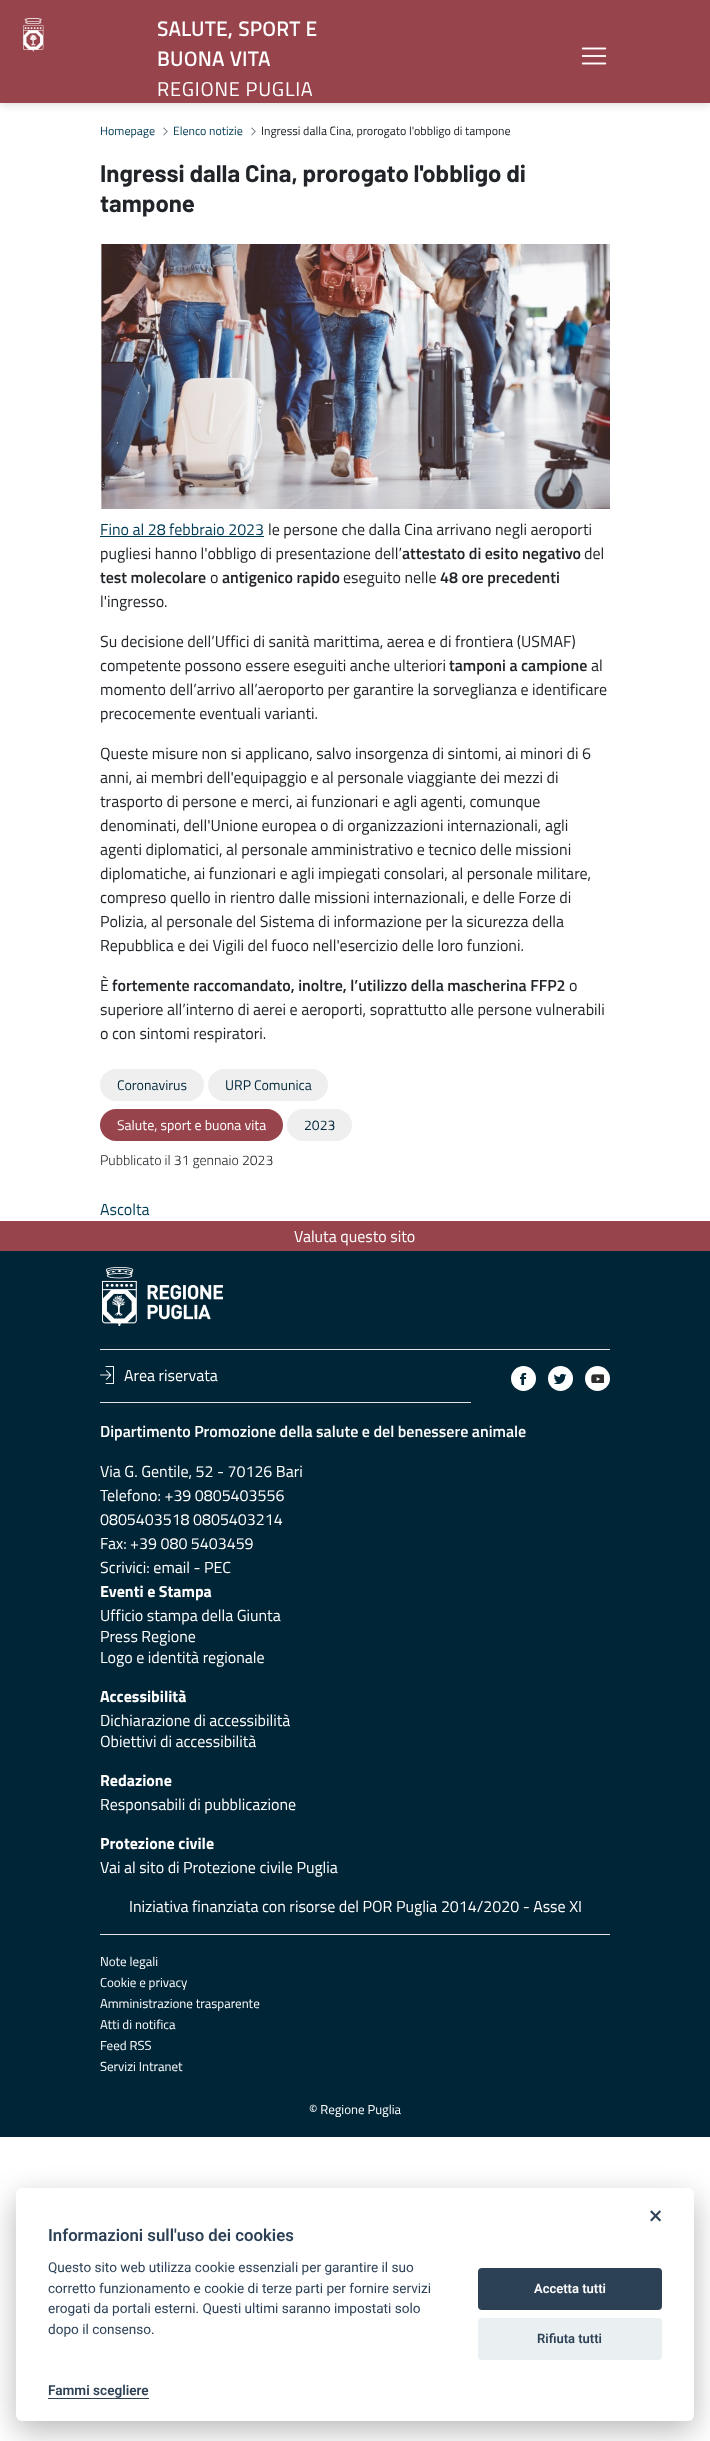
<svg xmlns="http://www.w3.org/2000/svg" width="710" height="2441">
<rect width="100%" height="100%" fill="#fff"/>
<rect y="1" width="710" height="103" fill="#00000029" filter="blur(5px)"/>
<rect width="710" height="103" fill="#98444c"/>
<image x="23" y="17" width="21" height="35" href="media/1.png"/>
<text x="157" y="36" style="font-family:'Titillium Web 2';font-size:20px;font-weight:bold;letter-spacing:0.75px;fill:#fff">SALUTE, SPORT E</text>
<text x="157" y="66" style="font-family:'Titillium Web 2';font-size:20px;font-weight:bold;letter-spacing:0.75px;fill:#fff">BUONA VITA</text>
<text x="157" y="96" style="font-family:Titillium Web;font-size:20px;letter-spacing:0.75px;fill:#fff">REGIONE PUGLIA</text>
<image x="581" y="47" width="26" height="18" href="media/2.png"/>
<text x="100" y="135" style="font-family:Titillium Web;font-size:12px;fill:#003a54">Homepage</text>
<image x="163" y="127" width="5" height="9" href="media/3.png"/>
<text x="173" y="135" style="font-family:Titillium Web;font-size:12px;fill:#003a54">Elenco notizie</text>
<image x="251" y="127" width="5" height="9" href="media/3.png"/>
<text x="261" y="135" style="font-family:Titillium Web;font-size:12px;fill:#212529">Ingressi dalla Cina, prorogato l'obbligo di tampone</text>
<text x="100" y="182" style="font-family:Barlow;font-size:24px;font-weight:bold;fill:#212529">Ingressi dalla Cina, prorogato l'obbligo di</text>
<text x="100" y="212" style="font-family:Barlow;font-size:24px;font-weight:bold;fill:#212529">tampone</text>
<image x="100" y="244" width="510" height="265" href="media/4.png"/>
<text x="100" y="535" style="font-family:Titillium Web;font-size:16px;fill:#003a54">Fino al 28 febbraio 2023</text>
<rect x="100" y="536" width="164" height="1" fill="#003a54"/>
<text x="268" y="535" style="font-family:Titillium Web;font-size:16px;fill:#212529">le persone che dalla Cina arrivano negli aeroporti</text>
<text x="100" y="559" style="font-family:Titillium Web;font-size:16px;fill:#212529">pugliesi hanno l'obbligo di presentazione dell’</text>
<text x="402" y="559" style="font-family:Titillium Web;font-size:16px;font-weight:600;fill:#212529">attestato di esito negativo</text>
<text x="584" y="559" style="font-family:Titillium Web;font-size:16px;fill:#212529">del</text>
<text x="100" y="583" style="font-family:Titillium Web;font-size:16px;font-weight:600;fill:#212529">test molecolare</text>
<text x="210" y="583" style="font-family:Titillium Web;font-size:16px;fill:#212529">o</text>
<text x="222" y="583" style="font-family:Titillium Web;font-size:16px;font-weight:600;fill:#212529">antigenico rapido</text>
<text x="343" y="583" style="font-family:Titillium Web;font-size:16px;fill:#212529">eseguito nelle</text>
<text x="440" y="583" style="font-family:Titillium Web;font-size:16px;font-weight:600;fill:#212529">48 ore precedenti</text>
<text x="100" y="607" style="font-family:Titillium Web;font-size:16px;fill:#212529">l'ingresso.</text>
<text x="100" y="647" style="font-family:Titillium Web;font-size:16px;fill:#212529">Su decisione dell’Uffici di sanità marittima, aerea e di frontiera (USMAF)</text>
<text x="100" y="671" style="font-family:Titillium Web;font-size:16px;fill:#212529">competente possono essere eseguiti anche ulteriori</text>
<text x="449" y="671" style="font-family:Titillium Web;font-size:16px;font-weight:600;fill:#212529">tamponi a campione</text>
<text x="591" y="671" style="font-family:Titillium Web;font-size:16px;fill:#212529">al</text>
<text x="100" y="695" style="font-family:Titillium Web;font-size:16px;fill:#212529">momento dell’arrivo all’aeroporto per garantire la sorveglianza e identificare</text>
<text x="100" y="719" style="font-family:Titillium Web;font-size:16px;fill:#212529">precocemente eventuali varianti.</text>
<text x="100" y="759" style="font-family:Titillium Web;font-size:16px;fill:#212529">Queste misure non si applicano, salvo insorgenza di sintomi, ai minori di 6</text>
<text x="100" y="783" style="font-family:Titillium Web;font-size:16px;fill:#212529">anni, ai membri dell'equipaggio e al personale viaggiante dei mezzi di</text>
<text x="100" y="807" style="font-family:Titillium Web;font-size:16px;fill:#212529">trasporto di persone e merci, ai funzionari e agli agenti, comunque</text>
<text x="100" y="831" style="font-family:Titillium Web;font-size:16px;fill:#212529">denominati, dell'Unione europea o di organizzazioni internazionali, agli</text>
<text x="100" y="855" style="font-family:Titillium Web;font-size:16px;fill:#212529">agenti diplomatici, al personale amministrativo e tecnico delle missioni</text>
<text x="100" y="879" style="font-family:Titillium Web;font-size:16px;fill:#212529">diplomatiche, ai funzionari e agli impiegati consolari, al personale militare,</text>
<text x="100" y="903" style="font-family:Titillium Web;font-size:16px;fill:#212529">compreso quello in rientro dalle missioni internazionali, e delle Forze di</text>
<text x="100" y="927" style="font-family:Titillium Web;font-size:16px;fill:#212529">Polizia, al personale del Sistema di informazione per la sicurezza della</text>
<text x="100" y="951" style="font-family:Titillium Web;font-size:16px;fill:#212529">Repubblica e dei Vigili del fuoco nell'esercizio delle loro funzioni.</text>
<text x="100" y="991" style="font-family:Titillium Web;font-size:16px;fill:#212529">È</text>
<text x="112" y="991" style="font-family:Titillium Web;font-size:16px;font-weight:600;fill:#212529">fortemente raccomandato, inoltre, l’utilizzo della mascherina FFP2</text>
<text x="569" y="991" style="font-family:Titillium Web;font-size:16px;fill:#212529">o</text>
<text x="100" y="1015" style="font-family:Titillium Web;font-size:16px;fill:#212529">superiore all’interno di aerei e aeroporti, soprattutto alle persone vulnerabili</text>
<text x="100" y="1039" style="font-family:Titillium Web;font-size:16px;fill:#212529">o con sintomi respiratori.</text>
<rect x="100" y="1069" width="104" height="32" rx="16" fill="#efefef"/>
<text x="117" y="1090" style="font-family:Titillium Web;font-size:14px;fill:#01283a">Coronavirus</text>
<rect x="208" y="1069" width="120" height="32" rx="16" fill="#efefef"/>
<text x="225" y="1090" style="font-family:Titillium Web;font-size:14px;fill:#01283a">URP Comunica</text>
<rect x="100" y="1109" width="183" height="32" rx="16" fill="#98444c"/>
<text x="117" y="1130" style="font-family:Titillium Web;font-size:14px;fill:#fff">Salute, sport e buona vita</text>
<rect x="287" y="1109" width="65" height="32" rx="16" fill="#efefef"/>
<text x="304" y="1130" style="font-family:Titillium Web;font-size:14px;fill:#01283a">2023</text>
<text x="100" y="1165" style="font-family:Titillium Web;font-size:14px;font-weight:300;fill:#212529">Pubblicato il 31 gennaio 2023</text>
<text x="100" y="1215" style="font-family:Titillium Web;font-size:16px;fill:#003a54">Ascolta</text>
<rect y="1221" width="710" height="30" fill="#98444c"/>
<text x="294" y="1242" style="font-family:Titillium Web;font-size:16px;fill:#fff">Valuta questo sito</text>
<rect y="1251" width="710" height="886" fill="#002537"/>
<image x="102" y="1267" width="121" height="59" href="media/5.png"/>
<rect x="100" y="1349" width="510" height="1" fill="#e6e6e6"/>
<image x="100" y="1366" width="14" height="18" href="media/6.png"/>
<text x="124" y="1381" style="font-family:Titillium Web;font-size:16px;fill:#fff">Area riservata</text>
<circle cx="523.5" cy="1378.5" r="12.5" fill="#fff"/>
<image x="520" y="1373" width="7" height="12" href="media/7.png"/>
<circle cx="560.5" cy="1378.5" r="12.5" fill="#fff"/>
<image x="554" y="1374" width="13" height="10" href="media/8.png"/>
<circle cx="597.5" cy="1378.5" r="12.5" fill="#fff"/>
<image x="591" y="1374" width="13" height="9" href="media/9.png"/>
<rect x="100" y="1402" width="371" height="1" fill="#e6e6e6"/>
<text x="100" y="1437" style="font-family:Titillium Web;font-size:16px;font-weight:600;fill:#fff">Dipartimento Promozione della salute e del benessere animale</text>
<text x="100" y="1477" style="font-family:Titillium Web;font-size:16px;fill:#fff">Via G. Gentile, 52 - 70126 Bari</text>
<text x="100" y="1501" style="font-family:Titillium Web;font-size:16px;fill:#fff">Telefono: +39 0805403556</text>
<text x="100" y="1525" style="font-family:Titillium Web;font-size:16px;fill:#fff">0805403518 0805403214</text>
<text x="100" y="1549" style="font-family:Titillium Web;font-size:16px;fill:#fff">Fax: +39 080 5403459</text>
<text x="100" y="1573" style="font-family:Titillium Web;font-size:16px;fill:#fff">Scrivici: email - PEC</text>
<text x="100" y="1597" style="font-family:Titillium Web;font-size:16px;font-weight:bold;fill:#fff">Eventi e Stampa</text>
<text x="100" y="1621" style="font-family:Titillium Web;font-size:16px;fill:#fff">Ufficio stampa della Giunta</text>
<text x="100" y="1642" style="font-family:Titillium Web;font-size:16px;fill:#fff">Press Regione</text>
<text x="100" y="1663" style="font-family:Titillium Web;font-size:16px;fill:#fff">Logo e identità regionale</text>
<text x="100" y="1702" style="font-family:Titillium Web;font-size:16px;font-weight:bold;fill:#fff">Accessibilità</text>
<text x="100" y="1726" style="font-family:Titillium Web;font-size:16px;fill:#fff">Dichiarazione di accessibilità</text>
<text x="100" y="1747" style="font-family:Titillium Web;font-size:16px;fill:#fff">Obiettivi di accessibilità</text>
<text x="100" y="1786" style="font-family:Titillium Web;font-size:16px;font-weight:bold;fill:#fff">Redazione</text>
<text x="100" y="1810" style="font-family:Titillium Web;font-size:16px;fill:#fff">Responsabili di pubblicazione</text>
<text x="100" y="1849" style="font-family:Titillium Web;font-size:16px;font-weight:bold;fill:#fff">Protezione civile</text>
<text x="100" y="1873" style="font-family:Titillium Web;font-size:16px;fill:#fff">Vai al sito di Protezione civile Puglia</text>
<text x="129" y="1912" style="font-family:Titillium Web;font-size:16px;fill:#fff">Iniziativa finanziata con risorse del POR Puglia 2014/2020 - Asse XI</text>
<rect x="100" y="1934" width="510" height="1" fill="#e6e6e6"/>
<text x="100" y="1966" style="font-family:Titillium Web;font-size:13px;fill:#fff">Note legali</text>
<text x="100" y="1987" style="font-family:Titillium Web;font-size:13px;fill:#fff">Cookie e privacy</text>
<text x="100" y="2008" style="font-family:Titillium Web;font-size:13px;fill:#fff">Amministrazione trasparente</text>
<text x="100" y="2029" style="font-family:Titillium Web;font-size:13px;fill:#fff">Atti di notifica</text>
<text x="100" y="2050" style="font-family:Titillium Web;font-size:13px;fill:#fff">Feed RSS</text>
<text x="100" y="2071" style="font-family:Titillium Web;font-size:13px;fill:#fff">Servizi Intranet</text>
<text x="309" y="2114" style="font-family:Titillium Web;font-size:13px;fill:#fff">© Regione Puglia</text>
<rect x="16" y="2198" width="678" height="233" rx="6" fill="#02020347" filter="blur(15px)"/>
<rect x="16" y="2188" width="678" height="233" rx="6" fill="#fff"/>
<text x="649" y="2224" style="font-family:Roboto;font-size:25px;fill:#2d4156">×</text>
<text x="48" y="2241" style="font-family:Roboto;font-size:16.75px;font-weight:600;fill:#2d4156">Informazioni sull'uso dei cookies</text>
<text x="48" y="2272" style="font-family:Roboto;font-size:13.6px;fill:#2d4156">Questo sito web utilizza cookie essenziali per garantire il suo</text>
<text x="48" y="2293" style="font-family:Roboto;font-size:13.6px;fill:#2d4156">corretto funzionamento e cookie di terze parti per fornire servizi</text>
<text x="48" y="2313" style="font-family:Roboto;font-size:13.6px;fill:#2d4156">erogati da portali esterni. Questi ultimi saranno impostati solo</text>
<text x="48" y="2334" style="font-family:Roboto;font-size:13.6px;fill:#2d4156">dopo il consenso.</text>
<text x="48" y="2395" style="font-family:Roboto;font-size:13.6px;font-weight:600;fill:#2d4156">Fammi scegliere</text>
<rect x="48" y="2398" width="101" height="1" fill="#2d4156"/>
<rect x="478" y="2268" width="184" height="42" rx="4" fill="#2d4156"/>
<text x="534" y="2293" style="font-family:Roboto;font-size:13px;font-weight:600;fill:#fff">Accetta tutti</text>
<rect x="478" y="2318" width="184" height="42" rx="4" fill="#eaeff2"/>
<text x="537" y="2343" style="font-family:Roboto;font-size:13px;font-weight:600;fill:#2d4156">Rifiuta tutti</text>
</svg>
